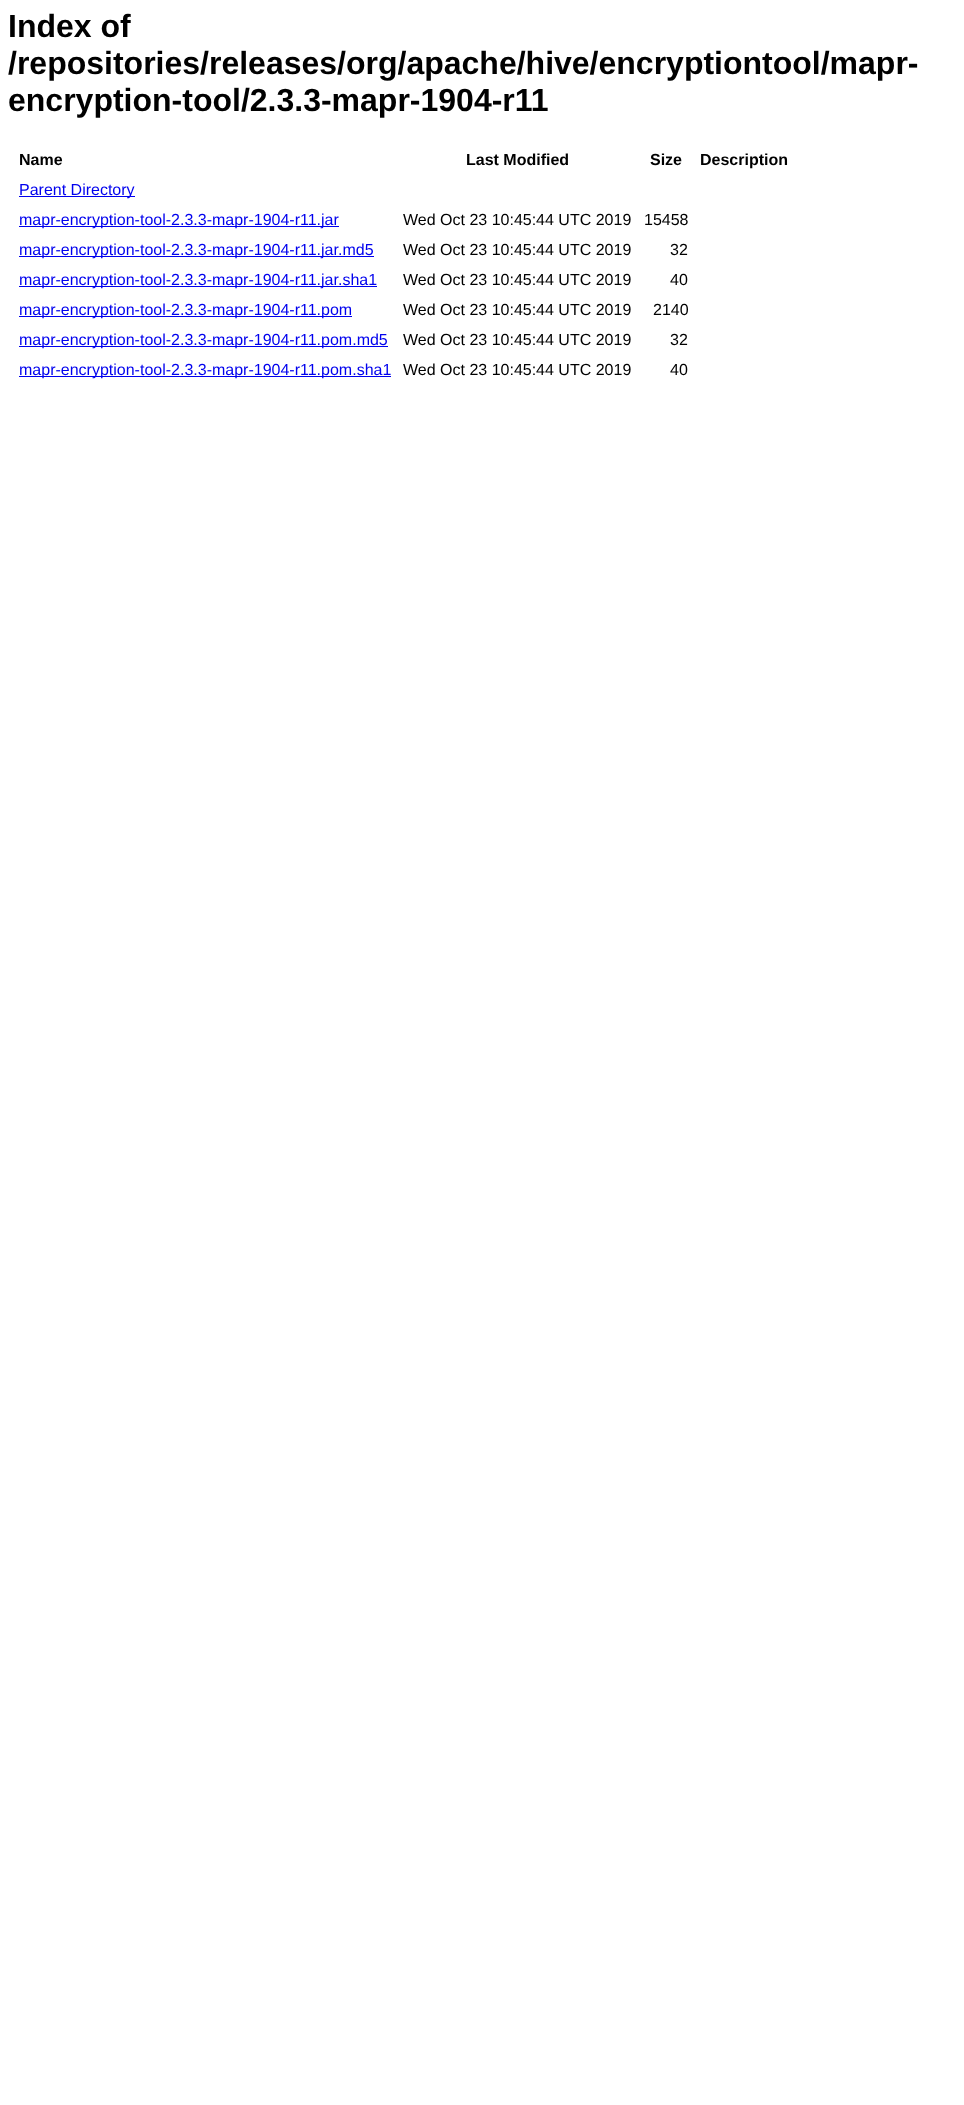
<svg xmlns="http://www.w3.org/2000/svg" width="964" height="2105">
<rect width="100%" height="100%" fill="#fff"/>
<text x="8" y="37" style="font-family:Liberation Sans;font-size:32px;font-weight:bold;fill:#000">Index of</text>
<text x="8" y="74" style="font-family:Liberation Sans;font-size:32px;font-weight:bold;fill:#000">/repositories/releases/org/apache/hive/encryptiontool/mapr-</text>
<text x="8" y="111" style="font-family:Liberation Sans;font-size:32px;font-weight:bold;fill:#000">encryption-tool/2.3.3-mapr-1904-r11</text>
<text x="19" y="165" style="font-family:Liberation Sans;font-size:16px;font-weight:bold;fill:#000">Name</text>
<text x="466" y="165" style="font-family:Liberation Sans;font-size:16px;font-weight:bold;fill:#000">Last Modified</text>
<text x="650" y="165" style="font-family:Liberation Sans;font-size:16px;font-weight:bold;fill:#000">Size</text>
<text x="700" y="165" style="font-family:Liberation Sans;font-size:16px;font-weight:bold;fill:#000">Description</text>
<rect x="19" y="196" width="116" height="1" fill="#00e"/>
<text x="19" y="195" style="font-family:Liberation Sans;font-size:16px;fill:#00e">Parent Directory</text>
<rect x="19" y="226" width="320" height="1" fill="#00e"/>
<text x="19" y="225" style="font-family:Liberation Sans;font-size:16px;fill:#00e">mapr-encryption-tool-2.3.3-mapr-1904-r11.jar</text>
<text x="403" y="225" style="font-family:Liberation Sans;font-size:16px;fill:#000">Wed Oct 23 10:45:44 UTC 2019</text>
<text x="644" y="225" style="font-family:Liberation Sans;font-size:16px;fill:#000">15458</text>
<rect x="19" y="256" width="355" height="1" fill="#00e"/>
<text x="19" y="255" style="font-family:Liberation Sans;font-size:16px;fill:#00e">mapr-encryption-tool-2.3.3-mapr-1904-r11.jar.md5</text>
<text x="403" y="255" style="font-family:Liberation Sans;font-size:16px;fill:#000">Wed Oct 23 10:45:44 UTC 2019</text>
<text x="670" y="255" style="font-family:Liberation Sans;font-size:16px;fill:#000">32</text>
<rect x="19" y="286" width="358" height="1" fill="#00e"/>
<text x="19" y="285" style="font-family:Liberation Sans;font-size:16px;fill:#00e">mapr-encryption-tool-2.3.3-mapr-1904-r11.jar.sha1</text>
<text x="403" y="285" style="font-family:Liberation Sans;font-size:16px;fill:#000">Wed Oct 23 10:45:44 UTC 2019</text>
<text x="670" y="285" style="font-family:Liberation Sans;font-size:16px;fill:#000">40</text>
<rect x="19" y="316" width="333" height="1" fill="#00e"/>
<text x="19" y="315" style="font-family:Liberation Sans;font-size:16px;fill:#00e">mapr-encryption-tool-2.3.3-mapr-1904-r11.pom</text>
<text x="403" y="315" style="font-family:Liberation Sans;font-size:16px;fill:#000">Wed Oct 23 10:45:44 UTC 2019</text>
<text x="653" y="315" style="font-family:Liberation Sans;font-size:16px;fill:#000">2140</text>
<rect x="19" y="346" width="369" height="1" fill="#00e"/>
<text x="19" y="345" style="font-family:Liberation Sans;font-size:16px;fill:#00e">mapr-encryption-tool-2.3.3-mapr-1904-r11.pom.md5</text>
<text x="403" y="345" style="font-family:Liberation Sans;font-size:16px;fill:#000">Wed Oct 23 10:45:44 UTC 2019</text>
<text x="670" y="345" style="font-family:Liberation Sans;font-size:16px;fill:#000">32</text>
<rect x="19" y="376" width="372" height="1" fill="#00e"/>
<text x="19" y="375" style="font-family:Liberation Sans;font-size:16px;fill:#00e">mapr-encryption-tool-2.3.3-mapr-1904-r11.pom.sha1</text>
<text x="403" y="375" style="font-family:Liberation Sans;font-size:16px;fill:#000">Wed Oct 23 10:45:44 UTC 2019</text>
<text x="670" y="375" style="font-family:Liberation Sans;font-size:16px;fill:#000">40</text>
</svg>
